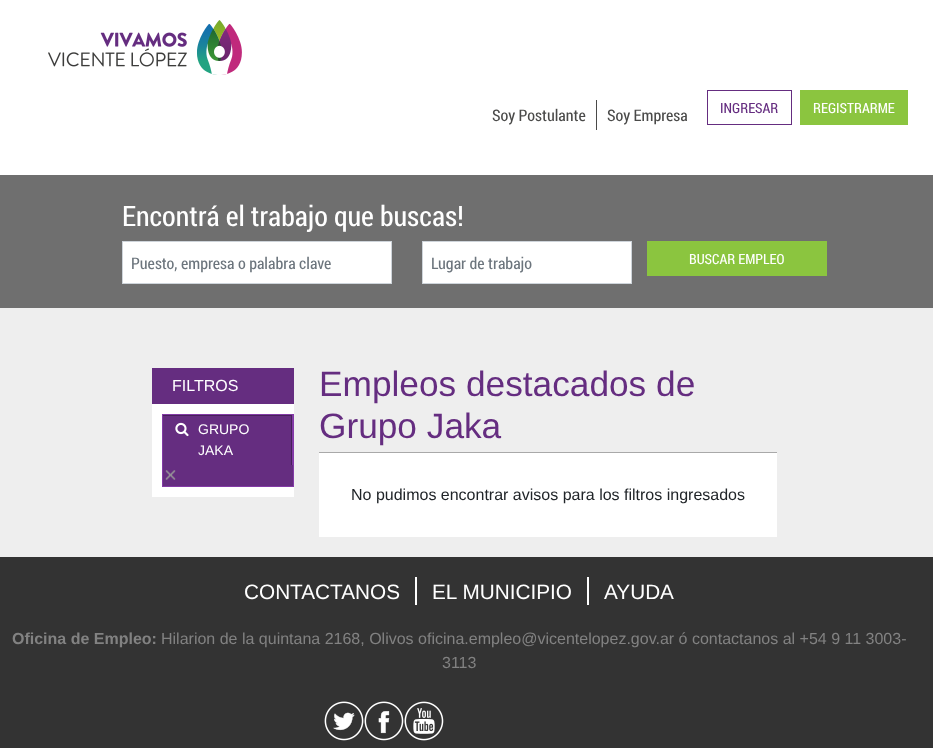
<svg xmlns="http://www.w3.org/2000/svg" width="933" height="748">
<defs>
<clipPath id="clip1"><rect x="163" y="415" width="129" height="50"/></clipPath>
</defs>
<rect width="100%" height="100%" fill="#eee"/>
<rect width="933" height="175" fill="#fff"/>
<image x="48" y="20" width="194" height="55" href="media/1.png"/>
<rect x="596" y="100" width="1" height="30" fill="#4a4a49"/>
<text x="492" y="121" style="font-family:Roboto Condensed;font-size:16px;fill:#4a4a49">Soy Postulante</text>
<text x="607" y="121" style="font-family:Roboto Condensed;font-size:16px;fill:#4a4a49">Soy Empresa</text>
<rect x="707.5" y="90.5" width="84" height="34" fill="none" stroke="#652d80"/>
<text x="720" y="113" style="font-family:Roboto Condensed;font-size:14px;fill:#652d80">INGRESAR</text>
<rect x="800" y="90" width="108" height="35" fill="#8bc53f"/>
<text x="813" y="113" style="font-family:Roboto Condensed;font-size:14px;fill:#fff">REGISTRARME</text>
<rect y="175" width="933" height="133" fill="#6f6f6f"/>
<text x="122" y="226" style="font-family:Roboto Condensed;font-size:28px;fill:#fff">Encontrá el trabajo que buscas!</text>
<rect x="122.5" y="241.5" width="269" height="42" fill="#fff" stroke="#ced4da"/>
<text x="131" y="269" style="font-family:Roboto Condensed;font-size:16px;fill:#6c757d">Puesto, empresa o palabra clave</text>
<rect x="422.5" y="241.5" width="209" height="42" fill="#fff" stroke="#ced4da"/>
<text x="431" y="269" style="font-family:Roboto Condensed;font-size:16px;fill:#6c757d">Lugar de trabajo</text>
<rect x="647" y="241" width="180" height="35" fill="#8bc53f"/>
<text x="689" y="264" style="font-family:Roboto Condensed;font-size:14px;fill:#fff">BUSCAR EMPLEO</text>
<rect x="152" y="404" width="142" height="93" fill="#fff"/>
<rect x="152" y="368" width="142" height="36" fill="#652d80"/>
<text x="172" y="391" style="font-family:Liberation Sans;font-size:16px;fill:#fff">FILTROS</text>
<rect x="163" y="416" width="130" height="70" fill="#652d80"/>
<rect x="162.5" y="414.5" width="131" height="72" fill="none" stroke="#833aa6"/>
<image x="175" y="422" width="14" height="15" href="media/2.png"/>
<g clip-path="url(#clip1)">
<path d="M64 316h327v248h-327zm98 100h129v50h-129z" fill="#47205a" fill-rule="evenodd"/>
</g>
<rect x="292" y="415" width="1" height="50" fill="#833aa6"/>
<text x="198" y="434" style="font-family:Liberation Sans;font-size:14px;fill:#fff">GRUPO</text>
<text x="198" y="455" style="font-family:Liberation Sans;font-size:14px;fill:#fff">JAKA</text>
<image x="165" y="470" width="11" height="10" href="media/3.png"/>
<text x="319" y="396" style="font-family:Liberation Sans;font-size:35.25px;fill:#652d80">Empleos destacados de</text>
<text x="319" y="438" style="font-family:Liberation Sans;font-size:35.25px;fill:#652d80">Grupo Jaka</text>
<rect x="319" y="453" width="458" height="84" fill="#fff"/>
<rect x="319" y="452" width="458" height="1" fill="#a9a9a9"/>
<text x="351" y="500" style="font-family:Liberation Sans;font-size:16px;fill:#212529">No pudimos encontrar avisos para los filtros ingresados</text>
<rect y="557" width="933" height="191" fill="#333"/>
<text x="244" y="599" style="font-family:Liberation Sans;font-size:20.75px;fill:#fff">CONTACTANOS</text>
<rect x="415" y="577" width="2" height="28" fill="#fff"/>
<text x="432" y="599" style="font-family:Liberation Sans;font-size:20.75px;fill:#fff">EL MUNICIPIO</text>
<rect x="587" y="577" width="2" height="28" fill="#fff"/>
<text x="604" y="599" style="font-family:Liberation Sans;font-size:20.75px;fill:#fff">AYUDA</text>
<text x="12" y="644" style="font-family:Liberation Sans;font-size:16px;font-weight:bold;fill:#828282">Oficina de Empleo:</text>
<text x="161" y="644" style="font-family:Liberation Sans;font-size:16px;fill:#828282">Hilarion de la quintana 2168, Olivos oficina.empleo@vicentelopez.gov.ar ó contactanos al +54 9 11 3003-</text>
<text x="442" y="668" style="font-family:Liberation Sans;font-size:16px;fill:#828282">3113</text>
<image x="324" y="701" width="40" height="40" href="media/4.png"/>
<image x="364" y="701" width="40" height="40" href="media/5.png"/>
<image x="404" y="701" width="40" height="40" href="media/6.png"/>
</svg>
